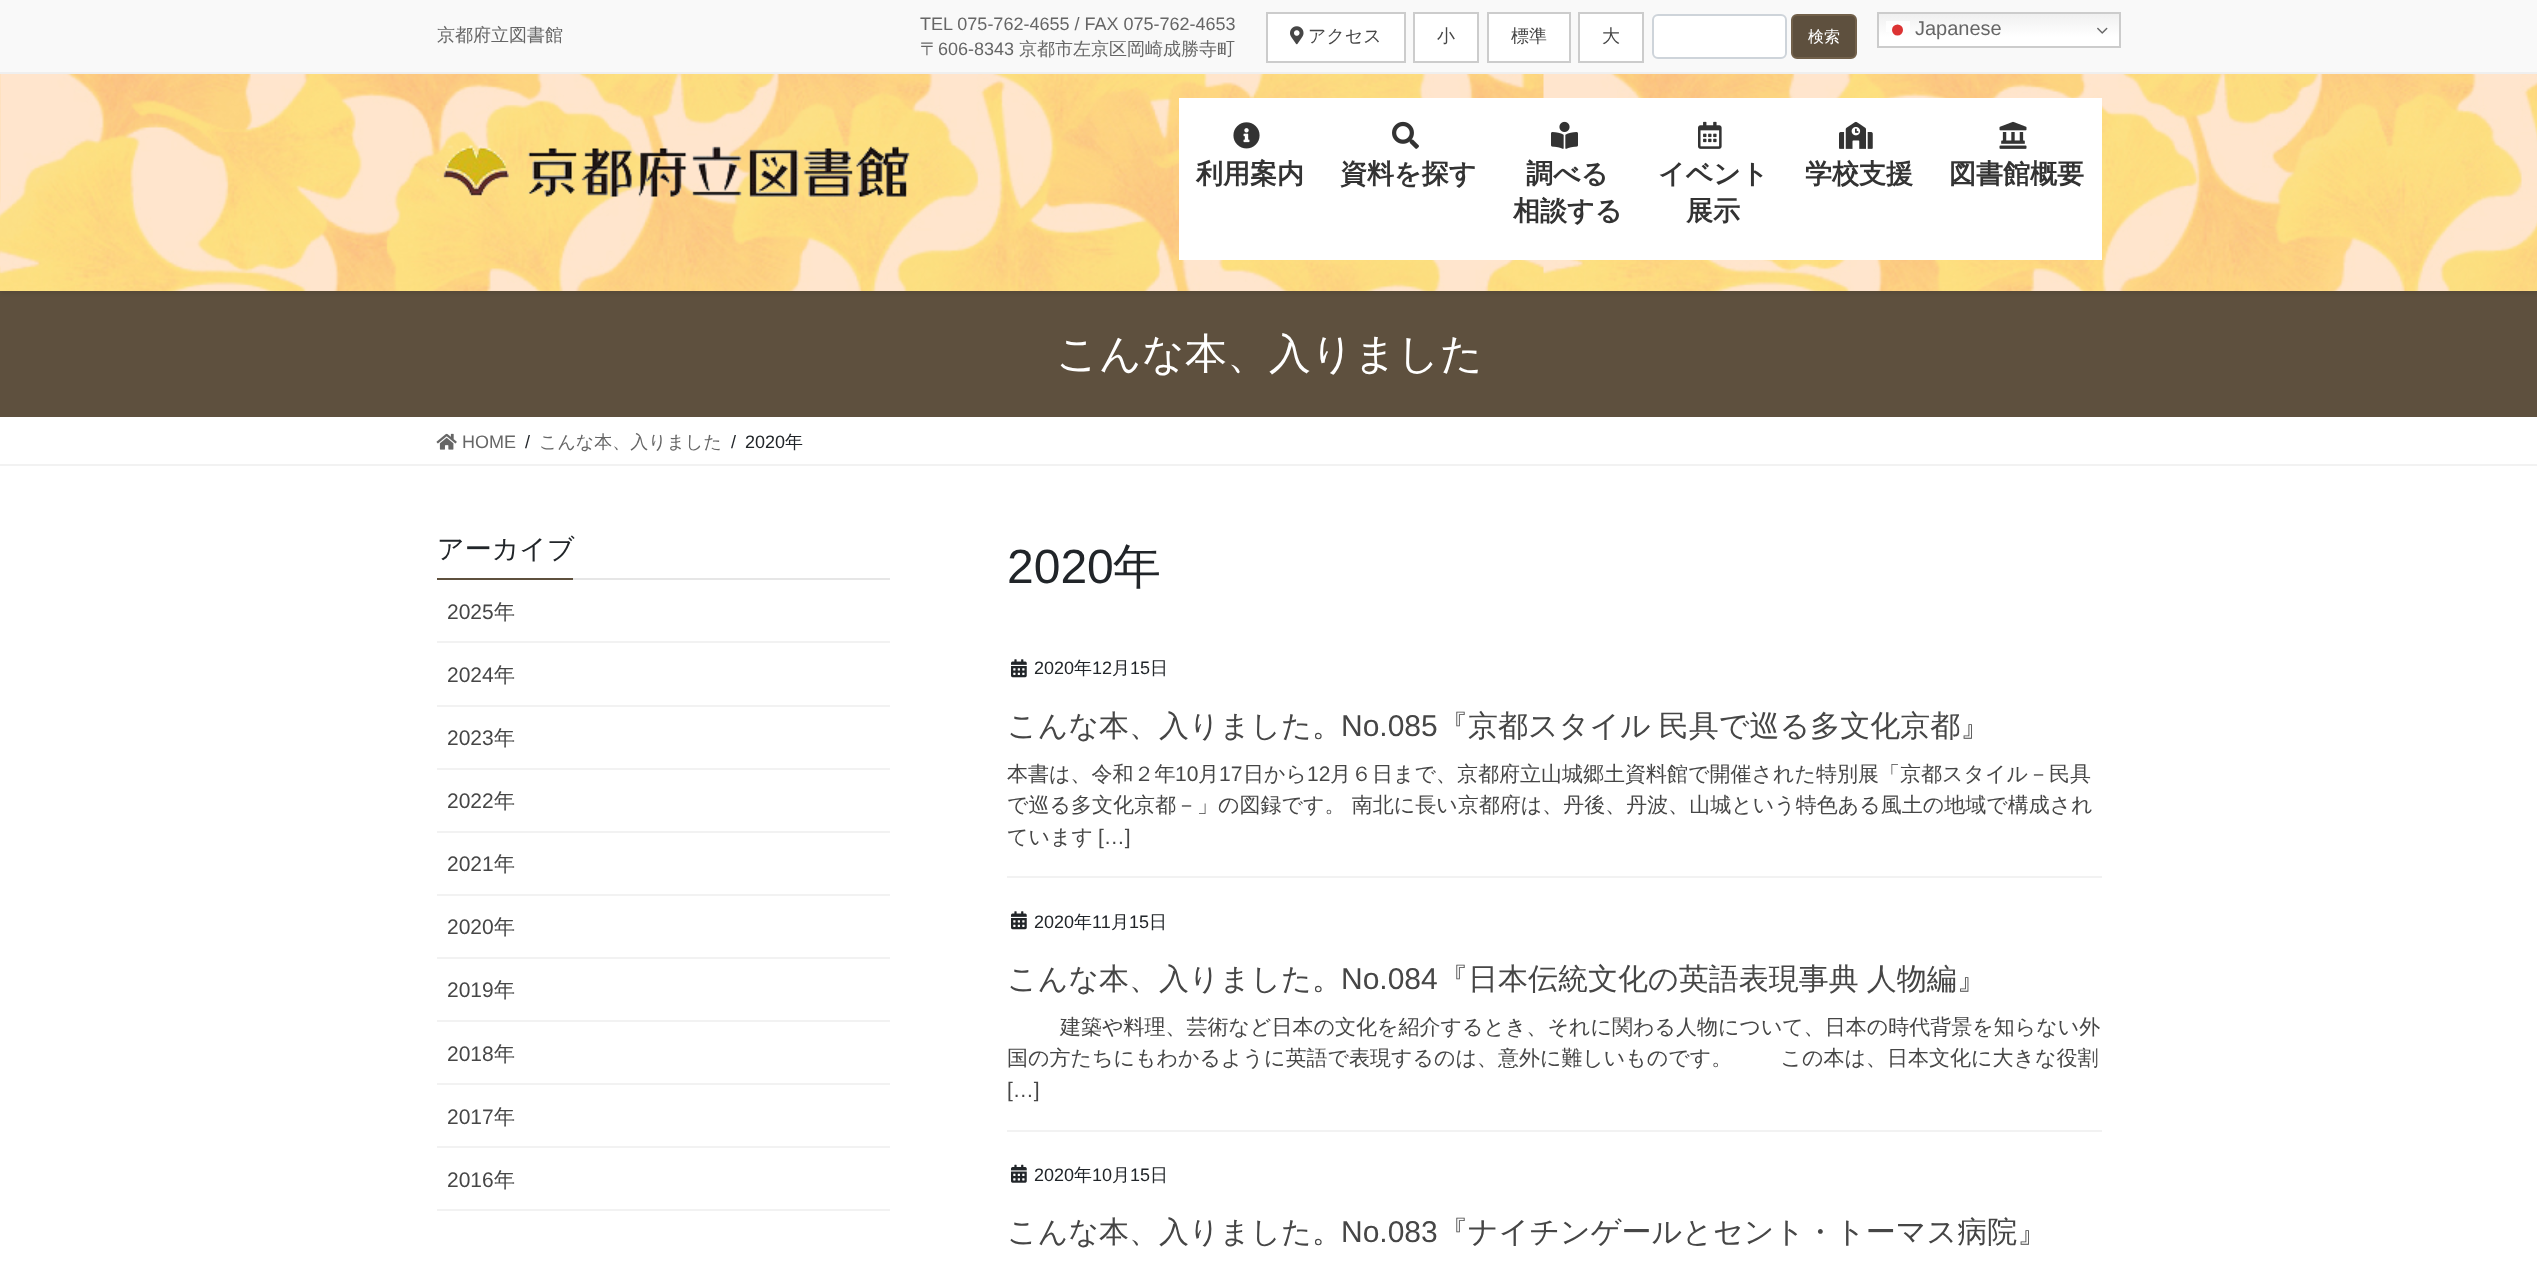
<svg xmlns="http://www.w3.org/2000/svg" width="2537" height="1271">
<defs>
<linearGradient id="g1" gradientUnits="userSpaceOnUse" x1="1999" y1="12" x2="1999" y2="48"><stop offset="0" stop-color="#efefef"/><stop offset="0.7" stop-color="#fff"/></linearGradient>
</defs>
<rect width="100%" height="100%" fill="#fff"/>
<rect y="291" width="2537" height="126" fill="#5e503e"/>
<rect y="-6" width="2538" height="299" fill="#0000001a" filter="blur(2px)"/>
<image x="0" y="74" width="2537" height="217" href="media/1.png"/>
<rect width="2537" height="72" fill="#f9f9f9"/>
<rect y="72" width="2537" height="2" fill="#efefef"/>
<text x="437" y="41" style="font-family:WenQuanYi Zen Hei;font-size:18px;font-weight:500;fill:#666">京都府立図書館</text>
<text x="920" y="30" style="font-family:Liberation Sans;font-size:18px;fill:#666">TEL 075-762-4655 / FAX 075-762-4653</text>
<text x="920" y="55" style="font-family:WenQuanYi Zen Hei;font-size:18px;font-weight:500;fill:#666">〒</text>
<text x="938" y="55" style="font-family:Liberation Sans;font-size:18px;fill:#666">606-8343</text>
<text x="1019" y="55" style="font-family:WenQuanYi Zen Hei;font-size:18px;font-weight:500;fill:#666">京都市左京区岡崎成勝寺町</text>
<rect x="1267" y="13" width="138" height="49" fill="#fff" stroke="#ccc" stroke-width="2"/>
<image x="1290" y="26" width="14" height="19" href="media/2.png"/>
<text x="1308" y="42" style="font-family:WenQuanYi Zen Hei;font-size:18px;font-weight:500;fill:#464646">アクセス</text>
<rect x="1414" y="13" width="64" height="49" fill="#fff" stroke="#ccc" stroke-width="2"/>
<text x="1437" y="42" style="font-family:WenQuanYi Zen Hei;font-size:18px;font-weight:500;fill:#464646">小</text>
<rect x="1488" y="13" width="82" height="49" fill="#fff" stroke="#ccc" stroke-width="2"/>
<text x="1511" y="42" style="font-family:WenQuanYi Zen Hei;font-size:18px;font-weight:500;fill:#464646">標準</text>
<rect x="1579" y="13" width="64" height="49" fill="#fff" stroke="#ccc" stroke-width="2"/>
<text x="1602" y="42" style="font-family:WenQuanYi Zen Hei;font-size:18px;font-weight:500;fill:#464646">大</text>
<rect x="1653" y="15" width="133" height="43" rx="5" fill="#fff" stroke="#ced4da" stroke-width="2"/>
<rect x="1792" y="15" width="64" height="43" rx="5" fill="#5e503e" stroke="#72614b" stroke-width="2"/>
<text x="1808" y="42" style="font-family:WenQuanYi Zen Hei;font-size:16px;font-weight:500;fill:#fff">検索</text>
<rect x="1879" y="14" width="240" height="32" fill="url(#g1)"/>
<rect x="1878" y="13" width="242" height="34" fill="none" stroke="#ccc" stroke-width="2"/>
<rect x="1886" y="21" width="24" height="11" fill="#ffffffcc"/>
<text x="1915" y="35" style="font-family:Liberation Sans;font-size:20px;fill:#666">Japanese</text>
<circle cx="1897.5" cy="30" r="5.5" fill="#dc3333"/>
<image x="2097" y="27" width="11" height="7" href="media/3.png"/>
<image x="436" y="145" width="474" height="52" href="media/4.png"/>
<rect x="1179" y="98" width="923" height="162" fill="#fff"/>
<image x="1233" y="122" width="27" height="27" href="media/5.png"/>
<text x="1196" y="183" style="font-family:WenQuanYi Zen Hei;font-size:27px;font-weight:bold;fill:#333">利用案内</text>
<image x="1392" y="121" width="27" height="28" href="media/6.png"/>
<text x="1340" y="183" style="font-family:WenQuanYi Zen Hei;font-size:27px;font-weight:bold;fill:#333">資料を探す</text>
<image x="1551" y="121" width="27" height="28" href="media/7.png"/>
<text x="1526" y="183" style="font-family:WenQuanYi Zen Hei;font-size:27px;font-weight:bold;fill:#333">調べる</text>
<text x="1513" y="220" style="font-family:WenQuanYi Zen Hei;font-size:27px;font-weight:bold;fill:#333">相談する</text>
<image x="1698" y="121" width="24" height="28" href="media/8.png"/>
<text x="1658" y="183" style="font-family:WenQuanYi Zen Hei;font-size:27px;font-weight:bold;fill:#333">イベント</text>
<text x="1686" y="220" style="font-family:WenQuanYi Zen Hei;font-size:27px;font-weight:bold;fill:#333">展示</text>
<image x="1839" y="121" width="34" height="28" href="media/9.png"/>
<text x="1805" y="183" style="font-family:WenQuanYi Zen Hei;font-size:27px;font-weight:bold;fill:#333">学校支援</text>
<image x="1999" y="121" width="28" height="28" href="media/10.png"/>
<text x="1949" y="183" style="font-family:WenQuanYi Zen Hei;font-size:27px;font-weight:bold;fill:#333">図書館概要</text>
<text x="1056" y="368" style="font-family:WenQuanYi Zen Hei;font-size:42px;font-weight:500;fill:#fff">こんな本、入りました</text>
<rect y="464" width="2537" height="2" fill="#f2f2f2"/>
<image x="436" y="433" width="21" height="17" href="media/11.png"/>
<text x="462" y="448" style="font-family:Liberation Sans;font-size:18px;fill:#666">HOME</text>
<text x="525" y="448" style="font-family:Liberation Sans;font-size:18px;fill:#212529">/</text>
<text x="539" y="448" style="font-family:WenQuanYi Zen Hei;font-size:18px;font-weight:500;fill:#666">こんな本、入りました</text>
<text x="731" y="448" style="font-family:Liberation Sans;font-size:18px;fill:#212529">/</text>
<text x="745" y="448" style="font-family:Liberation Sans;font-size:18px;fill:#212529">2020</text>
<text x="785" y="448" style="font-family:WenQuanYi Zen Hei;font-size:18px;font-weight:500;fill:#212529">年</text>
<rect x="573" y="578" width="317" height="2" fill="#e6e6e6"/>
<text x="437" y="558" style="font-family:WenQuanYi Zen Hei;font-size:27px;font-weight:500;fill:#212529">アーカイブ</text>
<rect x="437" y="578" width="136" height="2" fill="#5e503e"/>
<rect x="437" y="641" width="453" height="2" fill="#f2f2f2"/>
<text x="447" y="619" style="font-family:Liberation Sans;font-size:21px;fill:#464646">2025</text>
<text x="494" y="619" style="font-family:WenQuanYi Zen Hei;font-size:21px;font-weight:500;fill:#464646">年</text>
<rect x="437" y="705" width="453" height="2" fill="#f2f2f2"/>
<text x="447" y="682" style="font-family:Liberation Sans;font-size:21px;fill:#464646">2024</text>
<text x="494" y="682" style="font-family:WenQuanYi Zen Hei;font-size:21px;font-weight:500;fill:#464646">年</text>
<rect x="437" y="768" width="453" height="2" fill="#f2f2f2"/>
<text x="447" y="745" style="font-family:Liberation Sans;font-size:21px;fill:#464646">2023</text>
<text x="494" y="745" style="font-family:WenQuanYi Zen Hei;font-size:21px;font-weight:500;fill:#464646">年</text>
<rect x="437" y="831" width="453" height="2" fill="#f2f2f2"/>
<text x="447" y="808" style="font-family:Liberation Sans;font-size:21px;fill:#464646">2022</text>
<text x="494" y="808" style="font-family:WenQuanYi Zen Hei;font-size:21px;font-weight:500;fill:#464646">年</text>
<rect x="437" y="894" width="453" height="2" fill="#f2f2f2"/>
<text x="447" y="871" style="font-family:Liberation Sans;font-size:21px;fill:#464646">2021</text>
<text x="494" y="871" style="font-family:WenQuanYi Zen Hei;font-size:21px;font-weight:500;fill:#464646">年</text>
<rect x="437" y="957" width="453" height="2" fill="#f2f2f2"/>
<text x="447" y="934" style="font-family:Liberation Sans;font-size:21px;fill:#464646">2020</text>
<text x="494" y="934" style="font-family:WenQuanYi Zen Hei;font-size:21px;font-weight:500;fill:#464646">年</text>
<rect x="437" y="1020" width="453" height="2" fill="#f2f2f2"/>
<text x="447" y="997" style="font-family:Liberation Sans;font-size:21px;fill:#464646">2019</text>
<text x="494" y="997" style="font-family:WenQuanYi Zen Hei;font-size:21px;font-weight:500;fill:#464646">年</text>
<rect x="437" y="1083" width="453" height="2" fill="#f2f2f2"/>
<text x="447" y="1061" style="font-family:Liberation Sans;font-size:21px;fill:#464646">2018</text>
<text x="494" y="1061" style="font-family:WenQuanYi Zen Hei;font-size:21px;font-weight:500;fill:#464646">年</text>
<rect x="437" y="1146" width="453" height="2" fill="#f2f2f2"/>
<text x="447" y="1124" style="font-family:Liberation Sans;font-size:21px;fill:#464646">2017</text>
<text x="494" y="1124" style="font-family:WenQuanYi Zen Hei;font-size:21px;font-weight:500;fill:#464646">年</text>
<rect x="437" y="1209" width="453" height="2" fill="#f2f2f2"/>
<text x="447" y="1187" style="font-family:Liberation Sans;font-size:21px;fill:#464646">2016</text>
<text x="494" y="1187" style="font-family:WenQuanYi Zen Hei;font-size:21px;font-weight:500;fill:#464646">年</text>
<text x="1007" y="583" style="font-family:Liberation Sans;font-size:48px;fill:#212529">2020</text>
<text x="1113" y="583" style="font-family:WenQuanYi Zen Hei;font-size:48px;font-weight:500;fill:#212529">年</text>
<rect x="1007" y="876" width="1095" height="2" fill="#f2f2f2"/>
<image x="1011" y="659" width="16" height="19" href="media/12.png"/>
<text x="1034" y="674" style="font-family:Liberation Sans;font-size:18px;fill:#212529">2020</text>
<text x="1074" y="674" style="font-family:WenQuanYi Zen Hei;font-size:18px;font-weight:500;fill:#212529">年</text>
<text x="1092" y="674" style="font-family:Liberation Sans;font-size:18px;fill:#212529">12</text>
<text x="1112" y="674" style="font-family:WenQuanYi Zen Hei;font-size:18px;font-weight:500;fill:#212529">月</text>
<text x="1130" y="674" style="font-family:Liberation Sans;font-size:18px;fill:#212529">15</text>
<text x="1150" y="674" style="font-family:WenQuanYi Zen Hei;font-size:18px;font-weight:500;fill:#212529">日</text>
<text x="1007" y="736" style="font-family:WenQuanYi Zen Hei;font-size:30px;font-weight:500;fill:#464646">こんな本、入りました。</text>
<text x="1341" y="736" style="font-family:Liberation Sans;font-size:30px;fill:#464646">No.085</text>
<text x="1438" y="736" word-spacing="-1" style="font-family:WenQuanYi Zen Hei;font-size:30px;font-weight:500;fill:#464646">『京都スタイル 民具で巡る多文化京都』</text>
<text x="1007" y="781" style="font-family:WenQuanYi Zen Hei;font-size:21px;font-weight:500;fill:#464646">本書は、令和２年</text>
<text x="1175" y="781" style="font-family:Liberation Sans;font-size:21px;fill:#464646">10</text>
<text x="1198" y="781" style="font-family:WenQuanYi Zen Hei;font-size:21px;font-weight:500;fill:#464646">月</text>
<text x="1219" y="781" style="font-family:Liberation Sans;font-size:21px;fill:#464646">17</text>
<text x="1243" y="781" style="font-family:WenQuanYi Zen Hei;font-size:21px;font-weight:500;fill:#464646">日から</text>
<text x="1307" y="781" style="font-family:Liberation Sans;font-size:21px;fill:#464646">12</text>
<text x="1330" y="781" style="font-family:WenQuanYi Zen Hei;font-size:21px;font-weight:500;fill:#464646">月６日まで、京都府立山城郷土資料館で開催された特別展「京都スタイル－民具</text>
<text x="1007" y="812" style="font-family:WenQuanYi Zen Hei;font-size:21px;font-weight:500;fill:#464646">で巡る多文化京都－」の図録です。 南北に長い京都府は、丹後、丹波、山城という特色ある風土の地域で構成され</text>
<text x="1007" y="844" style="font-family:WenQuanYi Zen Hei;font-size:21px;font-weight:500;fill:#464646">ています</text>
<text x="1098" y="844" style="font-family:Liberation Sans;font-size:21px;fill:#464646">[…]</text>
<rect x="1007" y="1130" width="1095" height="2" fill="#f2f2f2"/>
<image x="1011" y="911" width="16" height="19" href="media/12.png"/>
<text x="1034" y="928" style="font-family:Liberation Sans;font-size:18px;fill:#212529">2020</text>
<text x="1074" y="928" style="font-family:WenQuanYi Zen Hei;font-size:18px;font-weight:500;fill:#212529">年</text>
<text x="1092" y="928" style="font-family:Liberation Sans;font-size:18px;fill:#212529">11</text>
<text x="1111" y="928" style="font-family:WenQuanYi Zen Hei;font-size:18px;font-weight:500;fill:#212529">月</text>
<text x="1129" y="928" style="font-family:Liberation Sans;font-size:18px;fill:#212529">15</text>
<text x="1149" y="928" style="font-family:WenQuanYi Zen Hei;font-size:18px;font-weight:500;fill:#212529">日</text>
<text x="1007" y="989" style="font-family:WenQuanYi Zen Hei;font-size:30px;font-weight:500;fill:#464646">こんな本、入りました。</text>
<text x="1341" y="989" style="font-family:Liberation Sans;font-size:30px;fill:#464646">No.084</text>
<text x="1438" y="989" word-spacing="-1" style="font-family:WenQuanYi Zen Hei;font-size:30px;font-weight:500;fill:#464646">『日本伝統文化の英語表現事典 人物編』</text>
<text x="1060" y="1034" style="font-family:WenQuanYi Zen Hei;font-size:21px;font-weight:500;fill:#464646">建築や料理、芸術など日本の文化を紹介するとき、それに関わる人物について、日本の時代背景を知らない外</text>
<text x="1007" y="1065" style="font-family:WenQuanYi Zen Hei;font-size:21px;font-weight:500;fill:#464646">国の方たちにもわかるように英語で表現するのは、意外に難しいものです。 　　この本は、日本文化に大きな役割</text>
<text x="1007" y="1097" style="font-family:Liberation Sans;font-size:21px;fill:#464646">[…]</text>
<image x="1011" y="1164" width="16" height="19" href="media/13.png"/>
<text x="1034" y="1181" style="font-family:Liberation Sans;font-size:18px;fill:#212529">2020</text>
<text x="1074" y="1181" style="font-family:WenQuanYi Zen Hei;font-size:18px;font-weight:500;fill:#212529">年</text>
<text x="1092" y="1181" style="font-family:Liberation Sans;font-size:18px;fill:#212529">10</text>
<text x="1112" y="1181" style="font-family:WenQuanYi Zen Hei;font-size:18px;font-weight:500;fill:#212529">月</text>
<text x="1130" y="1181" style="font-family:Liberation Sans;font-size:18px;fill:#212529">15</text>
<text x="1150" y="1181" style="font-family:WenQuanYi Zen Hei;font-size:18px;font-weight:500;fill:#212529">日</text>
<text x="1007" y="1242" style="font-family:WenQuanYi Zen Hei;font-size:30px;font-weight:500;fill:#464646">こんな本、入りました。</text>
<text x="1341" y="1242" style="font-family:Liberation Sans;font-size:30px;fill:#464646">No.083</text>
<text x="1438" y="1242" style="font-family:WenQuanYi Zen Hei;font-size:30px;font-weight:500;fill:#464646">『ナイチンゲールとセント・トーマス病院』</text>
</svg>
